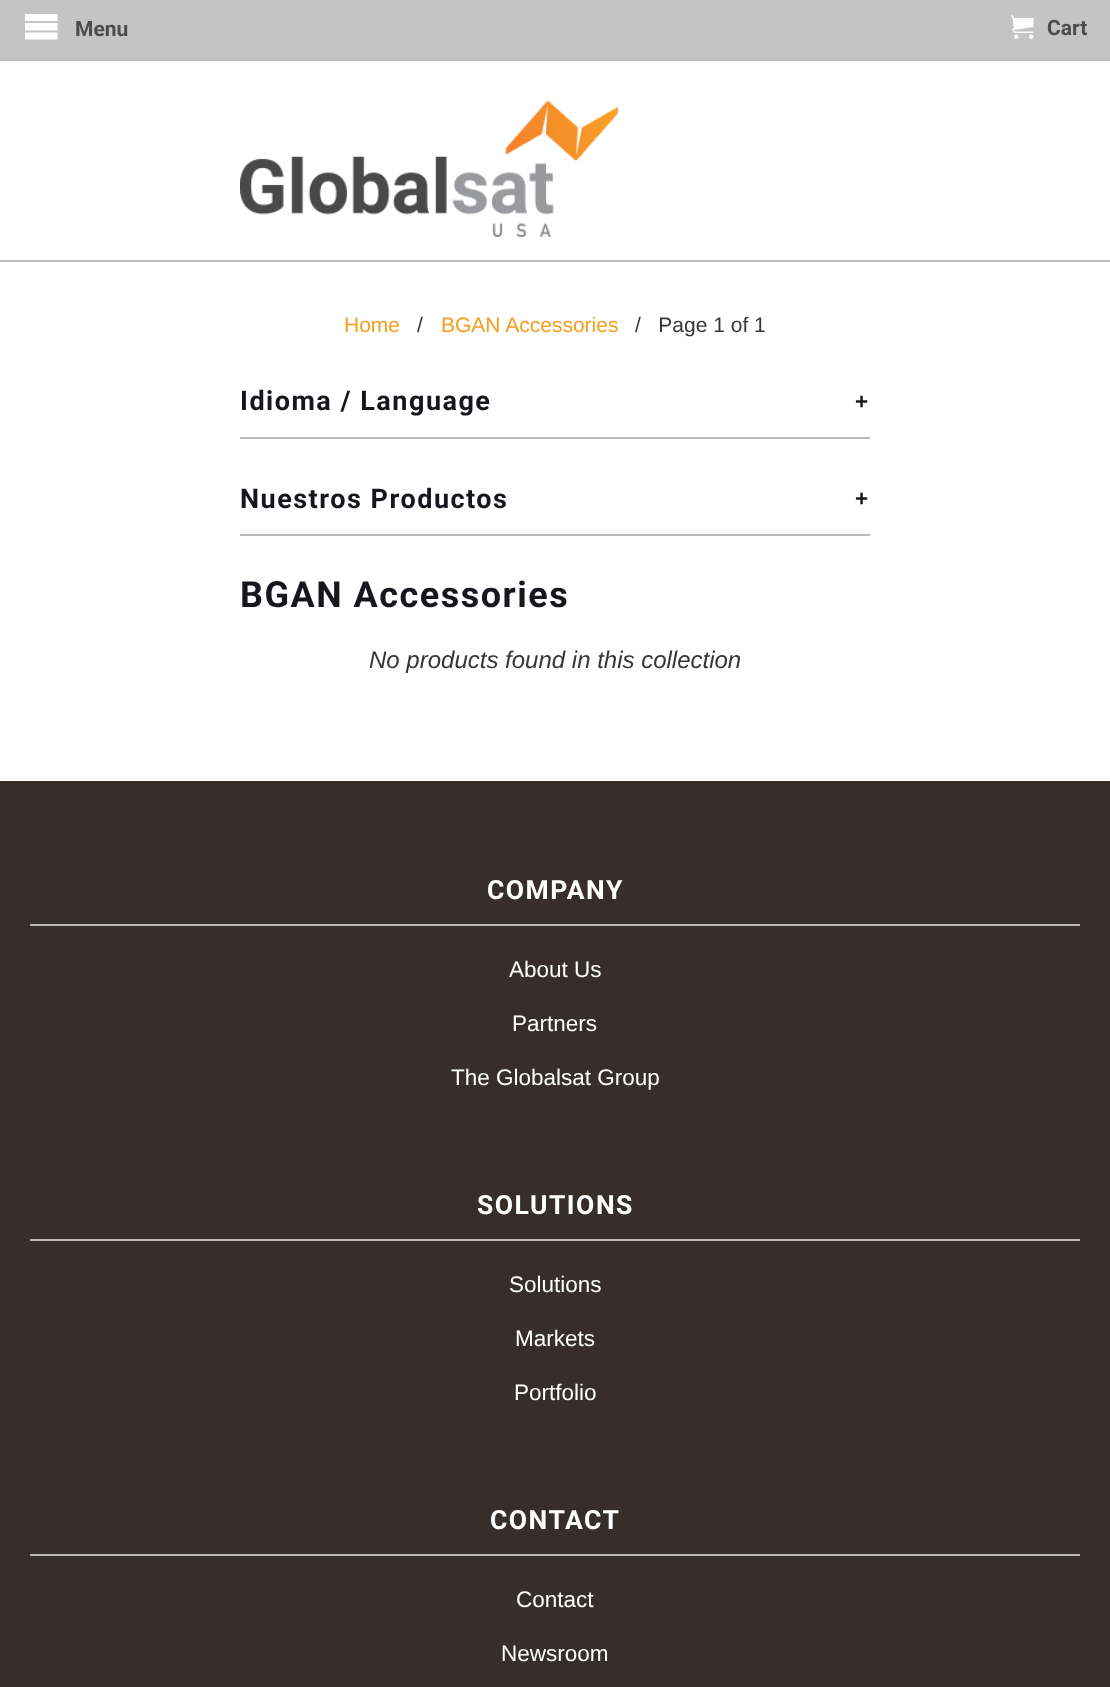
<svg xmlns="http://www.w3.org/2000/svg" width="1110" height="1687">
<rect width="100%" height="100%" fill="#fff"/>
<rect width="1110" height="59" fill="#c4c4c4"/>
<rect y="59" width="1110" height="2" fill="#bebebe"/>
<path d="M25 14v7h32.5v-7zm0 9v7.5h32.5v-7.5zm0 9.5v7h32.5v-7z" fill="#fff"/>
<text x="75" y="36" style="font-family:Roboto;font-size:21px;font-weight:bold;fill:#4c4c4c">Menu</text>
<image x="1011" y="15" width="23" height="24" href="media/1.png"/>
<text x="1047" y="35" style="font-family:Roboto;font-size:21px;font-weight:bold;fill:#4c4c4c">Cart</text>
<rect y="260" width="1110" height="2" fill="#bebebe"/>
<image x="240" y="101" width="379" height="136" href="media/2.png"/>
<text x="344" y="332" style="font-family:Liberation Sans;font-size:21px;fill:#f89c1b">Home</text>
<text x="417" y="332" style="font-family:Liberation Sans;font-size:21px;fill:#363636">/</text>
<text x="441" y="332" style="font-family:Liberation Sans;font-size:21px;fill:#f89c1b">BGAN Accessories</text>
<text x="635" y="332" style="font-family:Liberation Sans;font-size:21px;fill:#363636" xml:space="preserve">/   Page 1 of 1</text>
<rect x="240" y="437" width="630" height="2" fill="#bbb"/>
<text x="240" y="410" style="font-family:Roboto;font-size:27px;font-weight:bold;letter-spacing:1.5px;fill:#16161d">Idioma / Language</text>
<text x="855" y="409" style="font-family:Liberation Sans;font-size:22.5px;font-weight:bold;letter-spacing:1.5px;fill:#16161d">+</text>
<rect x="240" y="534" width="630" height="2" fill="#bbb"/>
<text x="240" y="508" style="font-family:Roboto;font-size:27px;font-weight:bold;letter-spacing:1.5px;fill:#16161d">Nuestros Productos</text>
<text x="855" y="506" style="font-family:Liberation Sans;font-size:22.5px;font-weight:bold;letter-spacing:1.5px;fill:#16161d">+</text>
<text x="240" y="607" style="font-family:Roboto;font-size:36px;font-weight:bold;letter-spacing:1.5px;fill:#16161d">BGAN Accessories</text>
<text x="369" y="668" style="font-family:Liberation Sans;font-size:24px;font-style:italic;fill:#363636">No products found in this collection</text>
<rect y="781" width="1110" height="906" fill="#372e2c"/>
<rect x="30" y="924" width="1050" height="2" fill="#bbb"/>
<text x="487" y="899" style="font-family:Roboto;font-size:26.5px;font-weight:bold;letter-spacing:1.5px;fill:#fff">COMPANY</text>
<text x="509" y="977" style="font-family:Liberation Sans;font-size:22.5px;fill:#fff">About Us</text>
<text x="512" y="1031" style="font-family:Liberation Sans;font-size:22.5px;fill:#fff">Partners</text>
<text x="451" y="1085" style="font-family:Liberation Sans;font-size:22.5px;fill:#fff">The Globalsat Group</text>
<rect x="30" y="1239" width="1050" height="2" fill="#bbb"/>
<text x="477" y="1214" style="font-family:Roboto;font-size:26.5px;font-weight:bold;letter-spacing:1.5px;fill:#fff">SOLUTIONS</text>
<text x="509" y="1292" style="font-family:Liberation Sans;font-size:22.5px;fill:#fff">Solutions</text>
<text x="515" y="1346" style="font-family:Liberation Sans;font-size:22.5px;fill:#fff">Markets</text>
<text x="514" y="1400" style="font-family:Liberation Sans;font-size:22.5px;fill:#fff">Portfolio</text>
<rect x="30" y="1554" width="1050" height="2" fill="#bbb"/>
<text x="490" y="1529" style="font-family:Roboto;font-size:26.5px;font-weight:bold;letter-spacing:1.5px;fill:#fff">CONTACT</text>
<text x="516" y="1607" style="font-family:Liberation Sans;font-size:22.5px;fill:#fff">Contact</text>
<text x="501" y="1661" style="font-family:Liberation Sans;font-size:22.5px;fill:#fff">Newsroom</text>
</svg>
